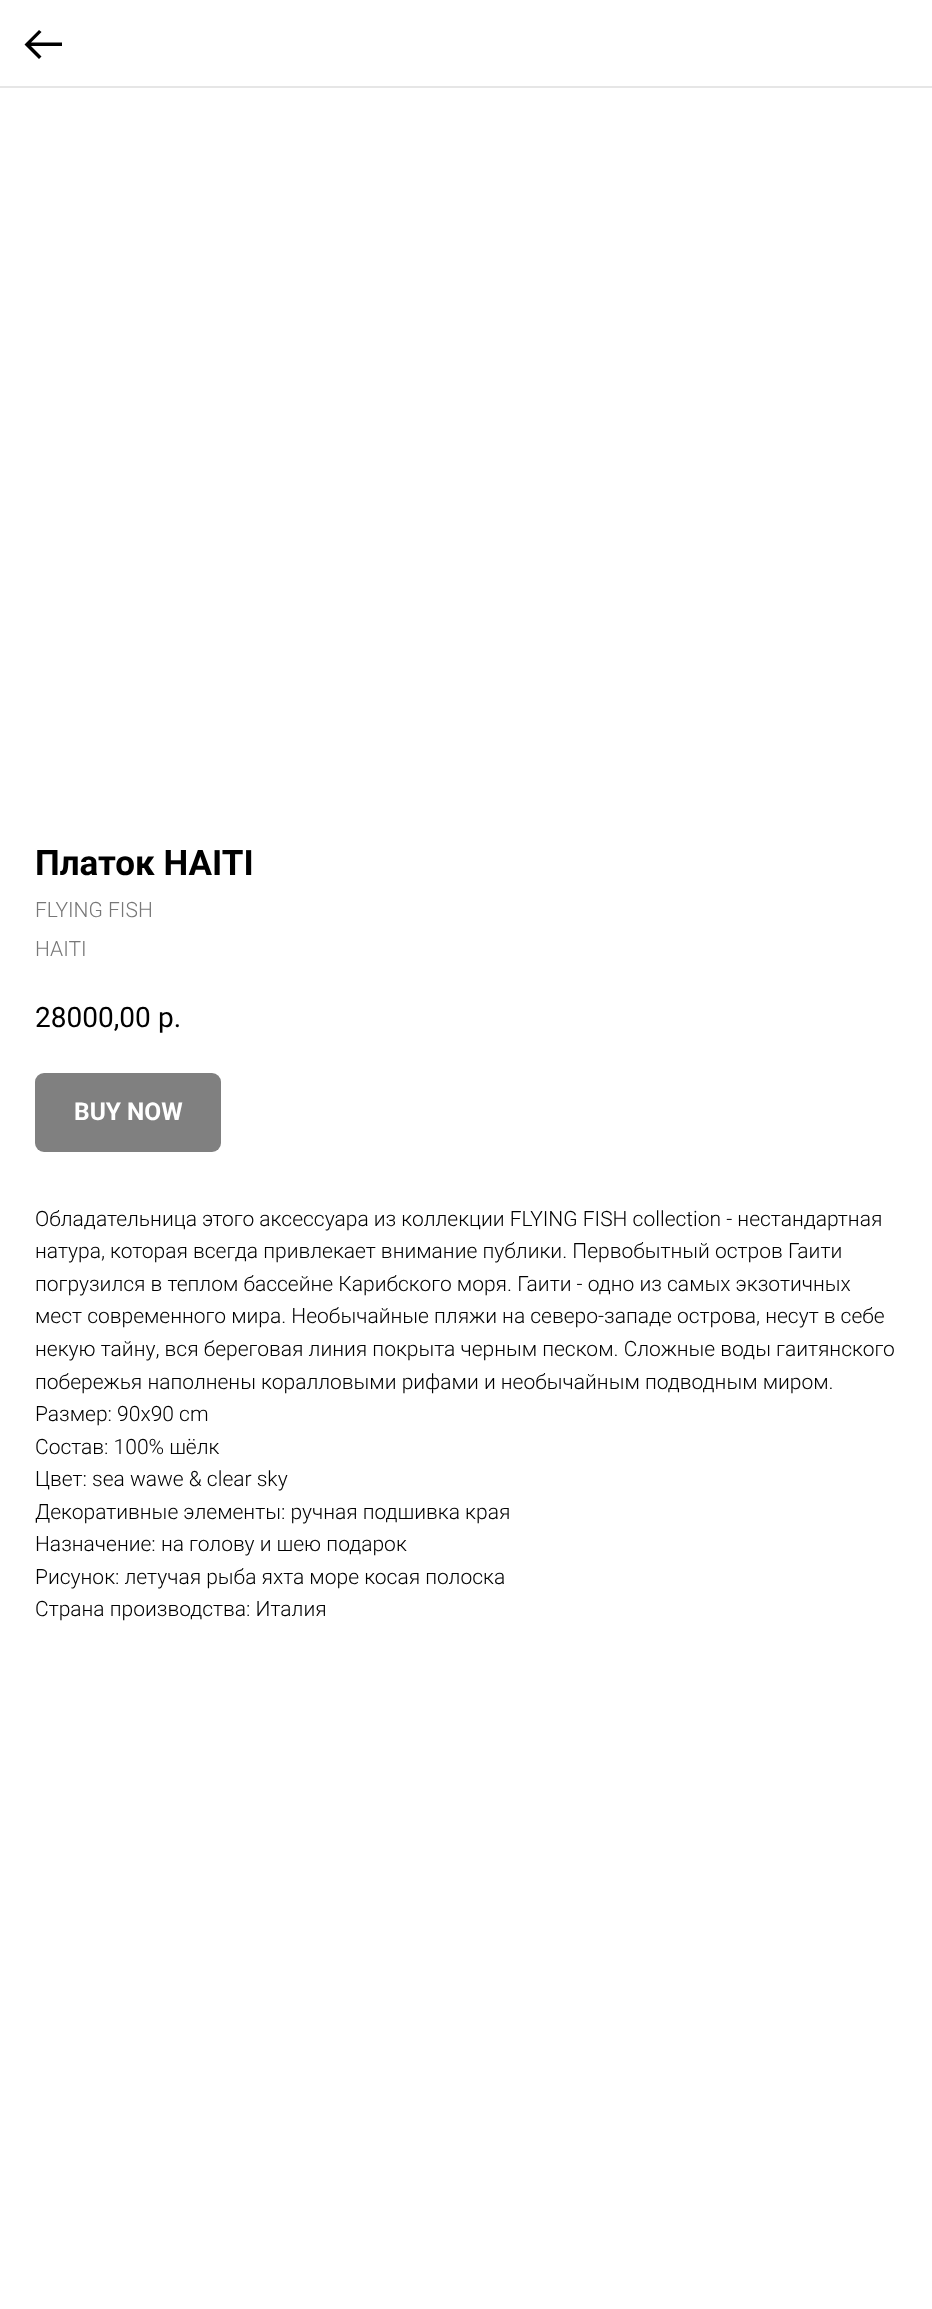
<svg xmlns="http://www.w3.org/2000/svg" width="932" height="2309">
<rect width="100%" height="100%" fill="#fff"/>
<rect y="86" width="932" height="2" fill="#e6e6e6"/>
<path d="M39 30l2.5 2l-10.5 10.5h31v3.5h-31l10.5 10.5l-2.5 2.5l-14.5-14.5z" fill="#000"/>
<text x="35" y="875" style="font-family:Roboto;font-size:35px;font-weight:bold;fill:#000">Платок HAITI</text>
<text x="35" y="917" style="font-family:Roboto;font-size:21px;font-weight:300;fill:#777">FLYING FISH</text>
<text x="35" y="956" style="font-family:Roboto;font-size:21px;font-weight:300;fill:#777">HAITI</text>
<text x="35" y="1027" style="font-family:Roboto;font-size:28px;fill:#000">28000,00</text>
<text x="158" y="1027" style="font-family:Roboto;font-size:28px;fill:#000">р.</text>
<rect x="35" y="1073" width="186" height="79" rx="9" fill="#808080"/>
<text x="74" y="1120" style="font-family:Roboto;font-size:24.5px;font-weight:bold;fill:#fff">BUY NOW</text>
<text x="35" y="1226" style="font-family:Roboto;font-size:21px;font-weight:300;fill:#000">Обладательница этого аксессуара из коллекции FLYING FISH сollection - нестандартная</text>
<text x="35" y="1258" style="font-family:Roboto;font-size:21px;font-weight:300;fill:#000">натура, которая всегда привлекает внимание публики. Первобытный остров Гаити</text>
<text x="35" y="1291" style="font-family:Roboto;font-size:21px;font-weight:300;fill:#000">погрузился в теплом бассейне Карибского моря. Гаити - одно из самых экзотичных</text>
<text x="35" y="1323" style="font-family:Roboto;font-size:21px;font-weight:300;fill:#000">мест современного мира. Необычайные пляжи на северо-западе острова, несут в себе</text>
<text x="35" y="1356" style="font-family:Roboto;font-size:21px;font-weight:300;fill:#000">некую тайну, вся береговая линия покрыта черным песком. Сложные воды гаитянского</text>
<text x="35" y="1389" style="font-family:Roboto;font-size:21px;font-weight:300;fill:#000">побережья наполнены коралловыми рифами и необычайным подводным миром.</text>
<text x="35" y="1421" style="font-family:Roboto;font-size:21px;font-weight:300;fill:#000">Размер: 90x90 cm</text>
<text x="35" y="1454" style="font-family:Roboto;font-size:21px;font-weight:300;fill:#000">Состав: 100% шёлк</text>
<text x="35" y="1486" style="font-family:Roboto;font-size:21px;font-weight:300;fill:#000">Цвет: sea wawe &amp; clear sky</text>
<text x="35" y="1519" style="font-family:Roboto;font-size:21px;font-weight:300;fill:#000">Декоративные элементы: ручная подшивка края</text>
<text x="35" y="1551" style="font-family:Roboto;font-size:21px;font-weight:300;fill:#000">Назначение: на голову и шею подарок</text>
<text x="35" y="1584" style="font-family:Roboto;font-size:21px;font-weight:300;fill:#000">Рисунок: летучая рыба яхта море косая полоска</text>
<text x="35" y="1616" style="font-family:Roboto;font-size:21px;font-weight:300;fill:#000">Страна производства: Италия</text>
</svg>
